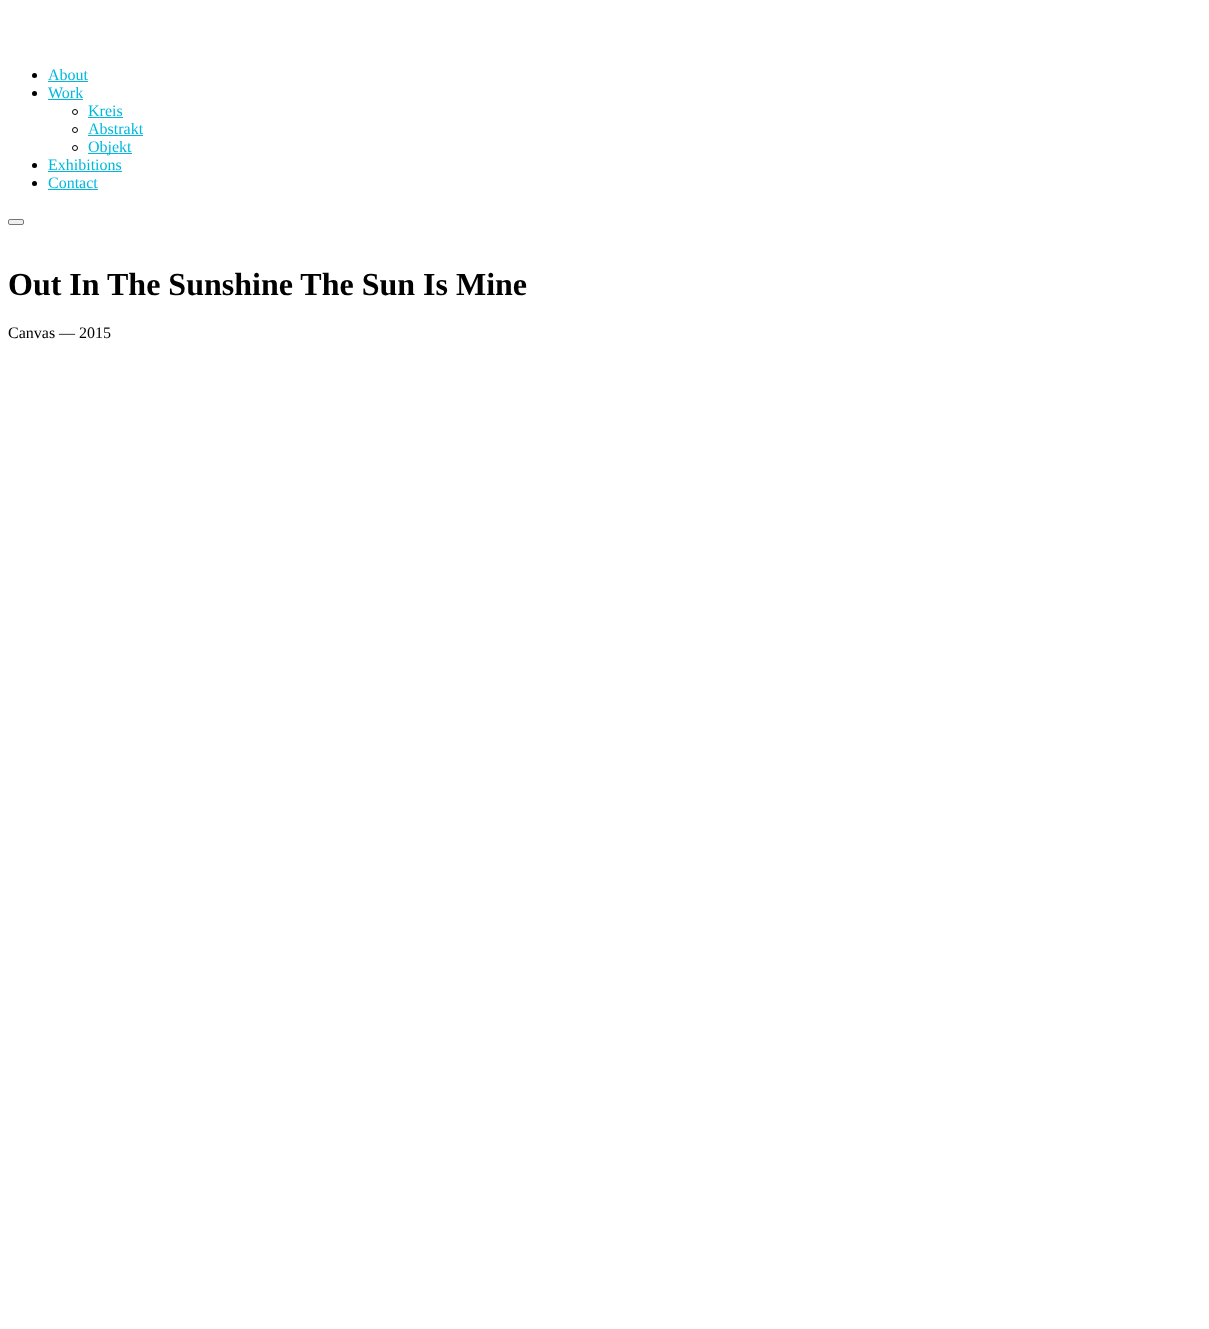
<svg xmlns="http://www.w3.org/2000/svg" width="1209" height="1329">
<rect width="100%" height="100%" fill="#fff"/>
<circle cx="34.5" cy="75.5" r="2.5" fill="#000"/>
<text x="48" y="80" style="font-family:Liberation Serif;font-size:16px;fill:#00b8dd">About</text>
<rect x="48" y="81" width="40" height="1" fill="#00b8dd"/>
<circle cx="34.5" cy="93.5" r="2.5" fill="#000"/>
<text x="48" y="98" style="font-family:Liberation Serif;font-size:16px;fill:#00b8dd">Work</text>
<rect x="48" y="99" width="35" height="1" fill="#00b8dd"/>
<circle cx="75" cy="112" r="2.5" fill="none" stroke="#000"/>
<text x="88" y="116" style="font-family:Liberation Serif;font-size:16px;fill:#00b8dd">Kreis</text>
<rect x="88" y="117" width="35" height="1" fill="#00b8dd"/>
<circle cx="75" cy="130" r="2.5" fill="none" stroke="#000"/>
<text x="88" y="134" style="font-family:Liberation Serif;font-size:16px;fill:#00b8dd">Abstrakt</text>
<rect x="88" y="135" width="55" height="1" fill="#00b8dd"/>
<circle cx="75" cy="148" r="2.5" fill="none" stroke="#000"/>
<rect x="88" y="153" width="44" height="1" fill="#00b8dd"/>
<text x="88" y="152" style="font-family:Liberation Serif;font-size:16px;fill:#00b8dd">Objekt</text>
<circle cx="34.5" cy="165.5" r="2.5" fill="#000"/>
<text x="48" y="170" style="font-family:Liberation Serif;font-size:16px;fill:#00b8dd">Exhibitions</text>
<rect x="48" y="171" width="74" height="1" fill="#00b8dd"/>
<circle cx="34.5" cy="183.5" r="2.5" fill="#000"/>
<text x="48" y="188" style="font-family:Liberation Serif;font-size:16px;fill:#00b8dd">Contact</text>
<rect x="48" y="189" width="50" height="1" fill="#00b8dd"/>
<rect x="8.5" y="219.5" width="15" height="5" rx="1.5" fill="#efefef" stroke="#767676"/>
<text x="8" y="295" style="font-family:Liberation Serif;font-size:32px;font-weight:bold;fill:#000">Out In The Sunshine The Sun Is Mine</text>
<text x="8" y="338" style="font-family:Liberation Serif;font-size:16px;fill:#000">Canvas — 2015</text>
</svg>
